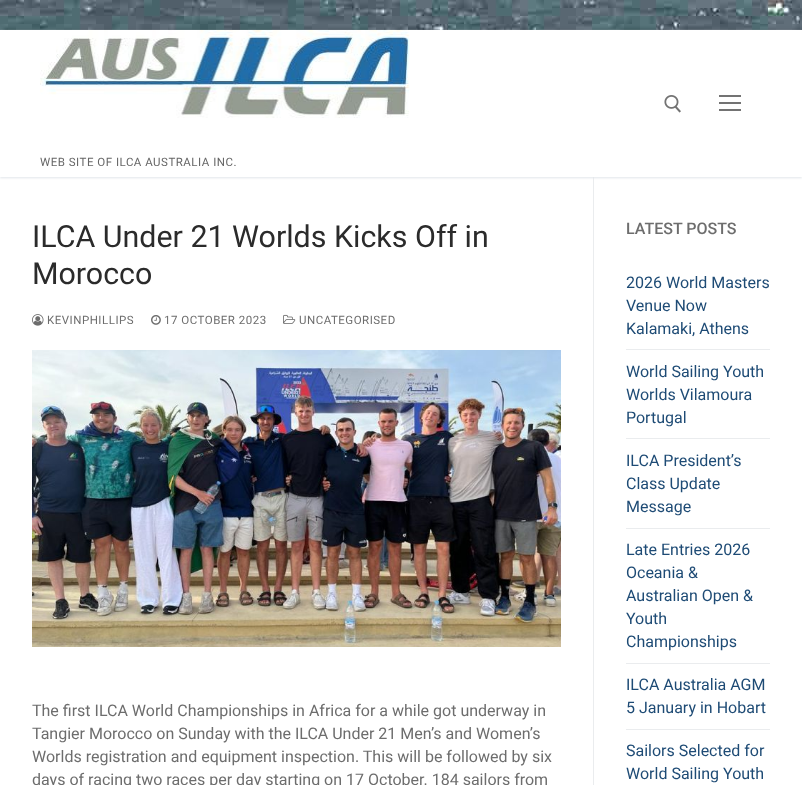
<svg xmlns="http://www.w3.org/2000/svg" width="802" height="785">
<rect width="100%" height="100%" fill="#fff"/>
<image x="0" y="0" width="802" height="30" href="media/1.png"/>
<rect y="33" width="802" height="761" fill="#0000003b" filter="blur(3px)"/>
<rect y="177" width="802" height="608" fill="#fff"/>
<rect x="593" y="177" width="1" height="608" fill="#eaecee"/>
<rect y="31" width="802" height="147" fill="#e1e5ea" filter="blur(1px)"/>
<rect y="30" width="802" height="147" fill="#fff"/>
<image x="664" y="95" width="17" height="18" href="media/2.png"/>
<rect x="719" y="102" width="22" height="2" fill="#737373"/>
<rect x="719" y="95" width="22" height="2" fill="#737373"/>
<rect x="719" y="109" width="22" height="2" fill="#737373"/>
<image x="40" y="30" width="370" height="88" href="media/3.png"/>
<text x="40" y="166" style="font-family:Roboto;font-size:11.5px;letter-spacing:0.5px;fill:#666">WEB SITE OF ILCA AUSTRALIA INC.</text>
<text x="32" y="247" style="font-family:Roboto;font-size:30.4px;fill:#2b2b2b">ILCA Under 21 Worlds Kicks Off in</text>
<text x="32" y="284" style="font-family:Roboto;font-size:30.4px;fill:#2b2b2b">Morocco</text>
<image x="32" y="314" width="12" height="12" href="media/4.png"/>
<text x="47" y="324" style="font-family:Roboto;font-size:11.5px;letter-spacing:0.5px;fill:#6d6d6d">KEVINPHILLIPS</text>
<image x="151" y="315" width="10" height="10" href="media/5.png"/>
<text x="164" y="324" style="font-family:Roboto;font-size:11.5px;letter-spacing:0.5px;fill:#6d6d6d">17 OCTOBER 2023</text>
<image x="283" y="314" width="13" height="10" href="media/6.png"/>
<text x="299" y="324" style="font-family:Roboto;font-size:11.5px;letter-spacing:0.5px;fill:#6d6d6d">UNCATEGORISED</text>
<image x="32" y="350" width="529" height="297" href="media/7.png"/>
<text x="32" y="716" style="font-family:Roboto;font-size:16px;fill:#6d6d6d">The first ILCA World Championships in Africa for a while got underway in</text>
<text x="32" y="739" style="font-family:Roboto;font-size:16px;fill:#6d6d6d">Tangier Morocco on Sunday with the ILCA Under 21 Men’s and Women’s</text>
<text x="32" y="762" style="font-family:Roboto;font-size:16px;fill:#6d6d6d">Worlds registration and equipment inspection. This will be followed by six</text>
<text x="32" y="785" style="font-family:Roboto;font-size:16px;fill:#6d6d6d">days of racing two races per day starting on 17 October. 184 sailors from</text>
<text x="626" y="234" style="font-family:Roboto;font-size:16px;font-weight:500;fill:#6d6d6d">LATEST POSTS</text>
<rect x="626" y="349" width="144" height="1" fill="#eaecee"/>
<text x="626" y="288" style="font-family:Roboto;font-size:16px;fill:#1e4b75">2026 World Masters</text>
<text x="626" y="311" style="font-family:Roboto;font-size:16px;fill:#1e4b75">Venue Now</text>
<text x="626" y="334" style="font-family:Roboto;font-size:16px;fill:#1e4b75">Kalamaki, Athens</text>
<rect x="626" y="438" width="144" height="1" fill="#eaecee"/>
<text x="626" y="377" style="font-family:Roboto;font-size:16px;fill:#1e4b75">World Sailing Youth</text>
<text x="626" y="400" style="font-family:Roboto;font-size:16px;fill:#1e4b75">Worlds Vilamoura</text>
<text x="626" y="423" style="font-family:Roboto;font-size:16px;fill:#1e4b75">Portugal</text>
<rect x="626" y="528" width="144" height="1" fill="#eaecee"/>
<text x="626" y="466" style="font-family:Roboto;font-size:16px;fill:#1e4b75">ILCA President’s</text>
<text x="626" y="489" style="font-family:Roboto;font-size:16px;fill:#1e4b75">Class Update</text>
<text x="626" y="512" style="font-family:Roboto;font-size:16px;fill:#1e4b75">Message</text>
<rect x="626" y="663" width="144" height="1" fill="#eaecee"/>
<text x="626" y="555" style="font-family:Roboto;font-size:16px;fill:#1e4b75">Late Entries 2026</text>
<text x="626" y="578" style="font-family:Roboto;font-size:16px;fill:#1e4b75">Oceania &amp;</text>
<text x="626" y="601" style="font-family:Roboto;font-size:16px;fill:#1e4b75">Australian Open &amp;</text>
<text x="626" y="624" style="font-family:Roboto;font-size:16px;fill:#1e4b75">Youth</text>
<text x="626" y="647" style="font-family:Roboto;font-size:16px;fill:#1e4b75">Championships</text>
<rect x="626" y="729" width="144" height="1" fill="#eaecee"/>
<text x="626" y="690" style="font-family:Roboto;font-size:16px;fill:#1e4b75">ILCA Australia AGM</text>
<text x="626" y="713" style="font-family:Roboto;font-size:16px;fill:#1e4b75">5 January in Hobart</text>
<text x="626" y="756" style="font-family:Roboto;font-size:16px;fill:#1e4b75">Sailors Selected for</text>
<text x="626" y="779" style="font-family:Roboto;font-size:16px;fill:#1e4b75">World Sailing Youth</text>
</svg>
